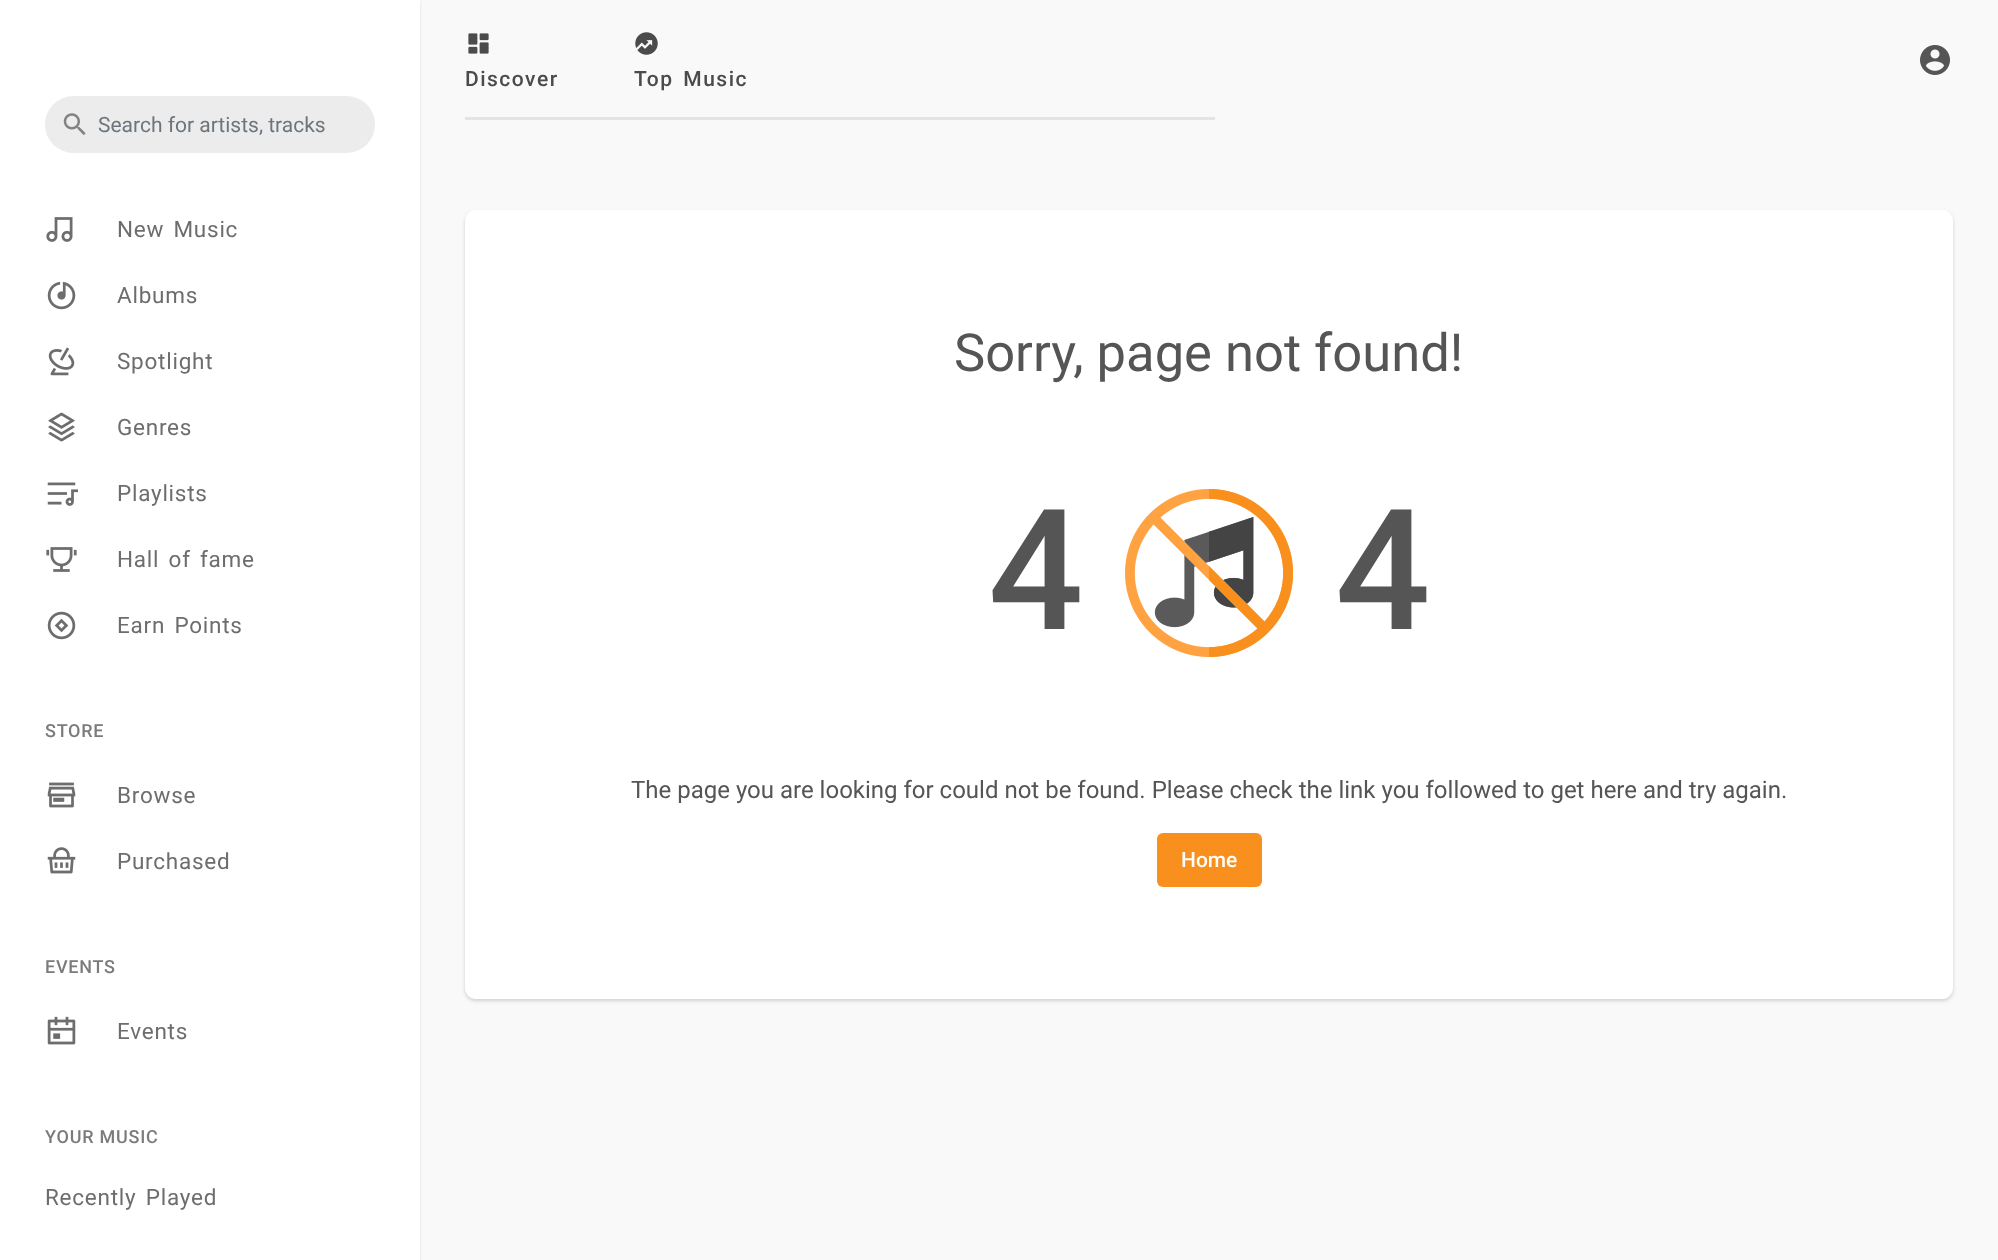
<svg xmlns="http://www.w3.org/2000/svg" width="1998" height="1260">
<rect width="100%" height="100%" fill="#f9f9f9"/>
<image x="1920" y="45" width="30" height="30" href="media/1.png"/>
<rect y="2" width="420" height="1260" fill="#0000001a" filter="blur(1.5px)"/>
<rect width="420" height="1260" fill="#fff"/>
<rect x="45" y="96" width="330" height="57" rx="28.5" fill="#ececec"/>
<image x="63" y="113" width="23" height="22" href="media/2.png"/>
<text x="98" y="132" style="font-family:Roboto;font-size:21px;fill:#6c757d">Search for artists, tracks</text>
<image x="46" y="217" width="27" height="25" href="media/3.png"/>
<text x="117" y="237" word-spacing="3" style="font-family:Roboto;font-size:22.5px;letter-spacing:0.75px;fill:#6d6d6d">New Music</text>
<image x="47" y="281" width="29" height="29" href="media/4.png"/>
<text x="117" y="303" style="font-family:Roboto;font-size:22.5px;letter-spacing:0.75px;fill:#6d6d6d">Albums</text>
<image x="48" y="347" width="27" height="29" href="media/5.png"/>
<text x="117" y="369" style="font-family:Roboto;font-size:22.5px;letter-spacing:0.75px;fill:#6d6d6d">Spotlight</text>
<image x="48" y="412" width="27" height="30" href="media/6.png"/>
<text x="117" y="435" style="font-family:Roboto;font-size:22.5px;letter-spacing:0.75px;fill:#6d6d6d">Genres</text>
<image x="47" y="482" width="31" height="24" href="media/7.png"/>
<text x="117" y="501" style="font-family:Roboto;font-size:22.5px;letter-spacing:0.75px;fill:#6d6d6d">Playlists</text>
<image x="46" y="547" width="31" height="25" href="media/8.png"/>
<text x="117" y="567" word-spacing="3" style="font-family:Roboto;font-size:22.5px;letter-spacing:0.75px;fill:#6d6d6d">Hall of fame</text>
<image x="47" y="611" width="29" height="29" href="media/9.png"/>
<text x="117" y="633" word-spacing="3" style="font-family:Roboto;font-size:22.5px;letter-spacing:0.75px;fill:#6d6d6d">Earn Points</text>
<text x="45" y="737" style="font-family:Roboto;font-size:18px;font-weight:500;letter-spacing:0.75px;fill:#7b7b7b">STORE</text>
<image x="47" y="782" width="29" height="26" href="media/10.png"/>
<text x="117" y="803" style="font-family:Roboto;font-size:22.5px;letter-spacing:0.75px;fill:#6d6d6d">Browse</text>
<image x="47" y="847" width="29" height="27" href="media/11.png"/>
<text x="117" y="869" style="font-family:Roboto;font-size:22.5px;letter-spacing:0.75px;fill:#6d6d6d">Purchased</text>
<text x="45" y="973" style="font-family:Roboto;font-size:18px;font-weight:500;letter-spacing:0.75px;fill:#7b7b7b">EVENTS</text>
<image x="47" y="1016" width="29" height="29" href="media/12.png"/>
<text x="117" y="1039" style="font-family:Roboto;font-size:22.5px;letter-spacing:0.75px;fill:#6d6d6d">Events</text>
<text x="45" y="1143" style="font-family:Roboto;font-size:18px;font-weight:500;letter-spacing:0.75px;fill:#7b7b7b">YOUR MUSIC</text>
<text x="45" y="1205" word-spacing="3" style="font-family:Roboto;font-size:22.5px;letter-spacing:0.75px;fill:#6d6d6d">Recently Played</text>
<image x="468" y="33" width="21" height="21" href="media/13.png"/>
<text x="465" y="86" style="font-family:Roboto;font-size:21px;font-weight:500;letter-spacing:1.5px;fill:#4b4b4b">Discover</text>
<image x="635" y="32" width="23" height="23" href="media/14.png"/>
<text x="634" y="86" word-spacing="3" style="font-family:Roboto;font-size:21px;font-weight:500;letter-spacing:1.5px;fill:#4b4b4b">Top Music</text>
<rect x="465" y="117" width="750" height="3" fill="#e4e4e4"/>
<rect x="465" y="212" width="1488" height="789" rx="11" fill="#0000000f" filter="blur(1.5px)"/>
<rect x="465" y="212" width="1488" height="789" rx="11" fill="#0000001a" filter="blur(2px)"/>
<rect x="465" y="210" width="1488" height="789" rx="11" fill="#fff"/>
<text x="954" y="371" style="font-family:Roboto;font-size:52.5px;fill:#555">Sorry, page not found!</text>
<text x="988" y="629" style="font-family:Roboto;font-size:168px;font-weight:500;fill:#555">4</text>
<image x="1125" y="489" width="168" height="168" href="media/15.png"/>
<text x="1335" y="629" style="font-family:Roboto;font-size:168px;font-weight:500;fill:#555">4</text>
<text x="631" y="798" style="font-family:Roboto;font-size:24px;fill:#555">The page you are looking for could not be found. Please check the link you followed to get here and try again.</text>
<rect x="1157" y="833" width="105" height="54" rx="6" fill="#f98f1d"/>
<text x="1181" y="867" style="font-family:Roboto;font-size:21px;font-weight:500;fill:#fff">Home</text>
</svg>
